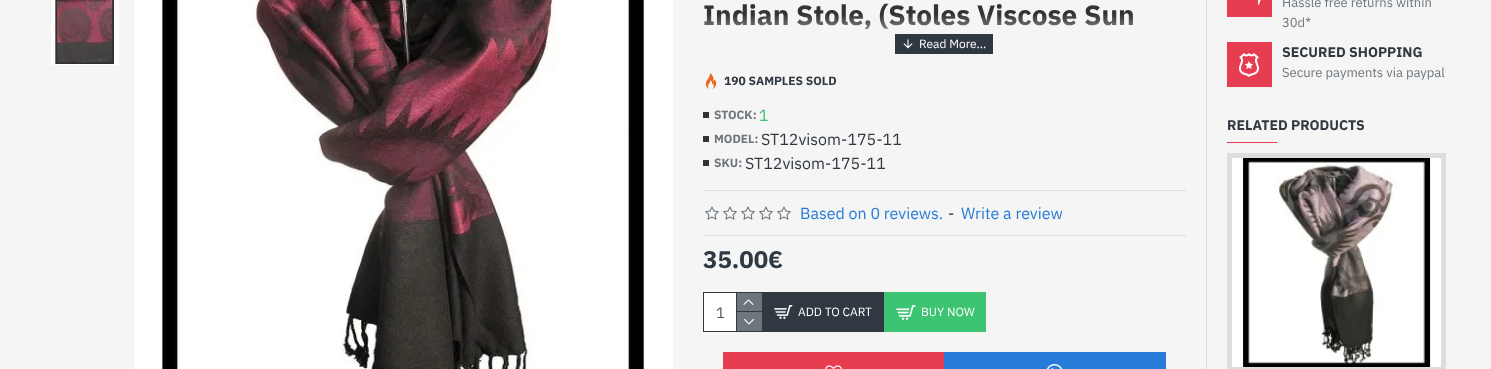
<svg xmlns="http://www.w3.org/2000/svg" width="1491" height="369">
<defs>
<linearGradient id="g1" gradientUnits="userSpaceOnUse" x1="945" y1="14" x2="945" y2="54"><stop offset="0" stop-color="#f5f5f5" stop-opacity="0"/><stop offset="1" stop-color="#f5f5f5"/></linearGradient>
</defs>
<rect width="100%" height="100%" fill="#f5f5f5"/>
<rect x="51.5" y="-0.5" width="67" height="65" fill="none" stroke="#fff"/>
<image x="52" y="0" width="66" height="64" href="media/1.png"/>
<image x="134" y="0" width="538" height="369" href="media/2.png"/>
<rect x="672" width="1" height="369" fill="#fff"/>
<text x="703" y="25" style="font-family:IBM Plex Sans;font-size:28px;font-weight:bold;fill:#333">Indian Stole, (Stoles Viscose Sun</text>
<rect x="703" y="15" width="430" height="15" fill="url(#g1)"/>
<rect x="895" y="34" width="98" height="20" fill="#303841"/>
<image x="903" y="39" width="10" height="10" href="media/3.png"/>
<text x="919" y="48" style="font-family:IBM Plex Sans;font-size:12px;fill:#fff">Read More...</text>
<image x="705" y="73" width="12" height="16" href="media/4.png"/>
<text x="724" y="85" style="font-family:IBM Plex Sans;font-size:12px;font-weight:bold;fill:#303841">190 SAMPLES SOLD</text>
<rect x="703" y="112" width="6" height="6" fill="#333"/>
<text x="714" y="119" style="font-family:IBM Plex Sans;font-size:12px;font-weight:bold;fill:#6d767d">STOCK:</text>
<text x="759" y="121" style="font-family:IBM Plex Sans;font-size:16px;fill:#3cc472">1</text>
<rect x="703" y="136" width="6" height="6" fill="#333"/>
<text x="714" y="143" style="font-family:IBM Plex Sans;font-size:12px;font-weight:bold;fill:#6d767d">MODEL:</text>
<text x="761" y="145" style="font-family:IBM Plex Sans;font-size:16px;fill:#303841">ST12visom-175-11</text>
<rect x="703" y="160" width="6" height="6" fill="#333"/>
<text x="714" y="167" style="font-family:IBM Plex Sans;font-size:12px;font-weight:bold;fill:#6d767d">SKU:</text>
<text x="745" y="169" style="font-family:IBM Plex Sans;font-size:16px;fill:#303841">ST12visom-175-11</text>
<rect x="703" y="190" width="483" height="1" fill="#ddd"/>
<rect x="703" y="235" width="483" height="1" fill="#ddd"/>
<image x="705" y="206" width="14" height="14" href="media/5.png"/>
<image x="723" y="206" width="14" height="14" href="media/5.png"/>
<image x="741" y="206" width="14" height="14" href="media/5.png"/>
<image x="759" y="206" width="14" height="14" href="media/5.png"/>
<image x="777" y="206" width="14" height="14" href="media/5.png"/>
<text x="800" y="219" style="font-family:IBM Plex Sans;font-size:16px;fill:#277cd9">Based on 0 reviews.</text>
<text x="948" y="219" style="font-family:IBM Plex Sans;font-size:16px;fill:#333">-</text>
<text x="961" y="219" style="font-family:IBM Plex Sans;font-size:16px;fill:#277cd9">Write a review</text>
<text x="703" y="268" style="font-family:IBM Plex Sans;font-size:24px;font-weight:bold;fill:#303841">35.00€</text>
<rect x="703.5" y="292.5" width="59" height="39" fill="none" stroke="#303841"/>
<rect x="704" y="293" width="32" height="38" fill="#fff"/>
<text x="716" y="318" style="font-family:IBM Plex Sans;font-size:15px;fill:#555">1</text>
<rect x="736" y="293" width="1" height="38" fill="#303841"/>
<rect x="737" y="293" width="25" height="18" fill="#6d767d"/>
<rect x="737" y="311" width="25" height="1" fill="#303841"/>
<image x="743" y="299" width="11" height="6" href="media/6.png"/>
<rect x="737" y="312" width="25" height="19" fill="#6d767d"/>
<image x="744" y="319" width="10" height="6" href="media/7.png"/>
<rect x="763" y="292" width="121" height="40" fill="#303841"/>
<image x="774" y="305" width="19" height="14" href="media/8.png"/>
<text x="798" y="316" style="font-family:IBM Plex Sans;font-size:12px;fill:#fff">ADD TO CART</text>
<rect x="884" y="292" width="102" height="40" fill="#3cc472"/>
<image x="896" y="305" width="20" height="15" href="media/9.png"/>
<text x="921" y="316" style="font-family:IBM Plex Sans;font-size:12px;fill:#fff">BUY NOW</text>
<rect x="723" y="352" width="221" height="17" fill="#e73d50"/>
<image x="825" y="365" width="17" height="4" href="media/10.png"/>
<rect x="944" y="352" width="222" height="17" fill="#277cd9"/>
<image x="1046" y="364" width="17" height="5" href="media/11.png"/>
<rect x="1206" width="1" height="369" fill="#ddd"/>
<rect x="1227" width="45" height="17" fill="#e73d50"/>
<image x="1258" y="0" width="3" height="5" href="media/12.png"/>
<text x="1282" y="7" style="font-family:IBM Plex Sans;font-size:13px;fill:#6d767d">Hassle free returns within</text>
<text x="1282" y="27" style="font-family:IBM Plex Sans;font-size:13px;fill:#6d767d">30d*</text>
<rect x="1227" y="42" width="45" height="45" fill="#e73d50"/>
<image x="1239" y="53" width="20" height="24" href="media/13.png"/>
<text x="1282" y="57" style="font-family:IBM Plex Sans;font-size:14px;font-weight:bold;fill:#303841">SECURED SHOPPING</text>
<text x="1282" y="77" style="font-family:IBM Plex Sans;font-size:13px;fill:#6d767d">Secure payments via paypal</text>
<text x="1227" y="130" style="font-family:IBM Plex Sans;font-size:14px;font-weight:bold;fill:#303841">RELATED PRODUCTS</text>
<rect x="1227" y="142" width="50" height="1" fill="#e73d50"/>
<rect x="1229.5" y="155.5" width="214" height="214" fill="none" stroke="#ddd" stroke-width="5"/>
<image x="1232" y="158" width="209" height="209" href="media/14.png"/>
</svg>
